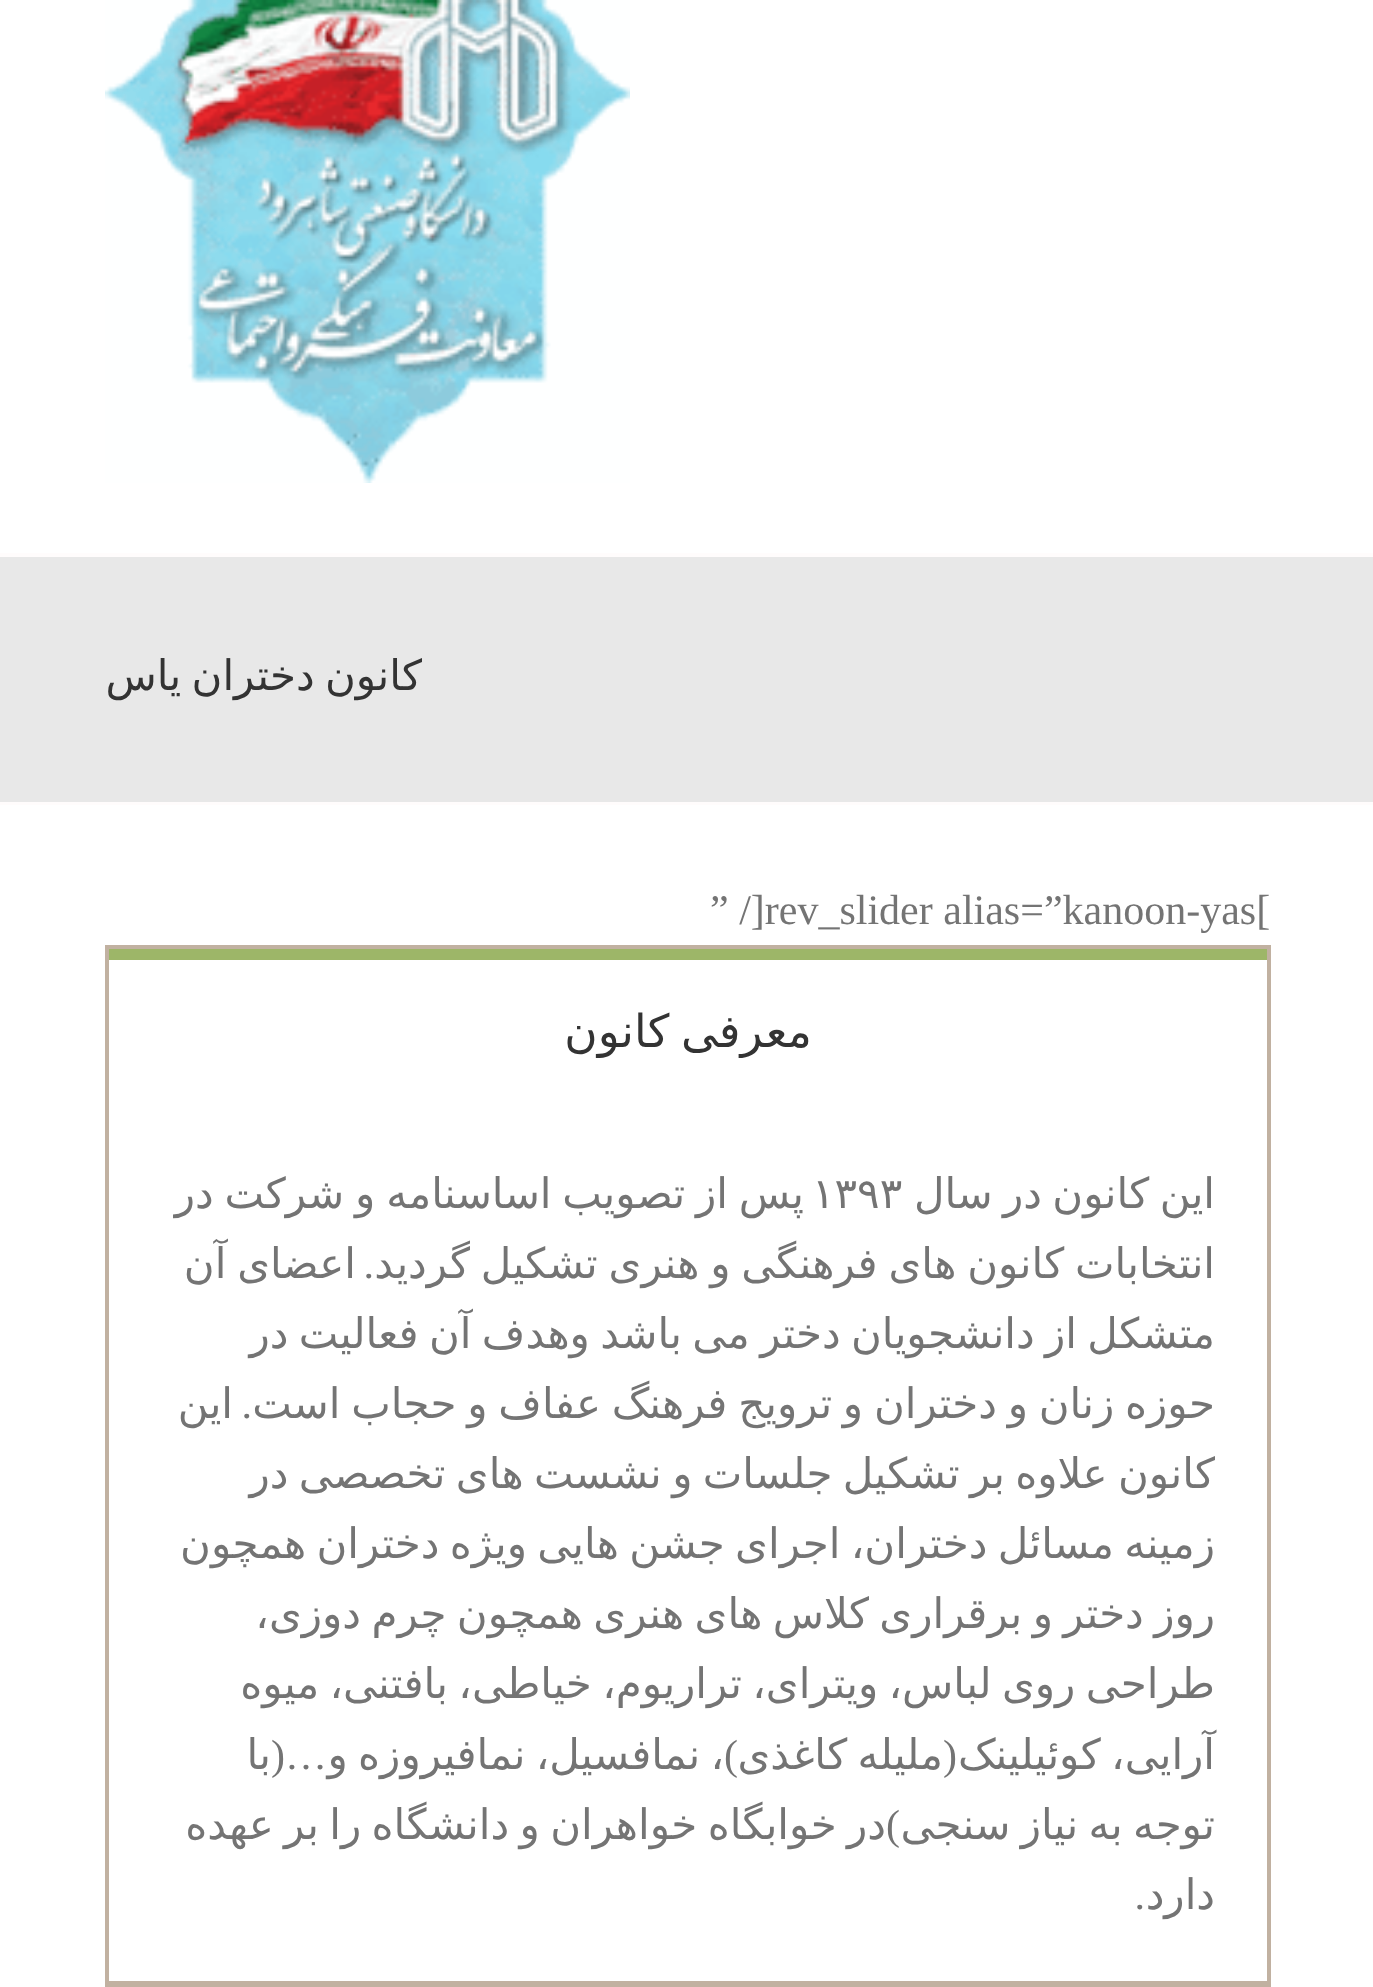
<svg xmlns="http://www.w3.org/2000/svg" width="1373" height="1987">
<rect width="100%" height="100%" fill="#e8e8e8"/>
<rect width="1373" height="553" fill="#fff"/>
<image x="105" y="0" width="525" height="483" href="media/1.png"/>
<rect y="553" width="1373" height="4" fill="#fffcfc"/>
<rect y="802" width="1373" height="3" fill="#fffcfc"/>
<text x="422" y="690" word-spacing="-3" style="font-family:DejaVu Sans;font-size:42px;direction:rtl;fill:#333">کانون دختران یاس</text>
<rect y="805" width="1373" height="1182" fill="#fff"/>
<text x="710" y="924" style="font-family:Liberation Serif;font-size:42px;fill:#747474">” /]rev_slider alias=”kanoon-yas[</text>
<rect x="105" y="945" width="1166" height="4" fill="#c1b1a1"/>
<rect x="1267" y="945" width="4" height="1040" fill="#c1b1a1"/>
<rect x="105" y="945" width="4" height="161" fill="#c1b1a1"/>
<rect x="109" y="949" width="1158" height="11" fill="#9db668"/>
<text x="812" y="1047" word-spacing="-3" style="font-family:DejaVu Sans;font-size:45.5px;direction:rtl;fill:#333">معرفی کانون</text>
<rect x="105" y="1981" width="1166" height="6" fill="#c1b1a1"/>
<rect x="105" y="1106" width="4" height="879" fill="#c1b1a1"/>
<text x="1215" y="1208" word-spacing="-3" style="font-family:DejaVu Sans;font-size:42px;direction:rtl;fill:#747474">این کانون در سال</text>
<text x="812" y="1208" style="font-family:DejaVu Sans;font-size:42px;fill:#747474">۱۳۹۳</text>
<text x="804" y="1208" word-spacing="-2.5" style="font-family:DejaVu Sans;font-size:42px;direction:rtl;fill:#747474">پس از تصویب اساسنامه و شرکت در</text>
<text x="1215" y="1278" word-spacing="-2.5" style="font-family:DejaVu Sans;font-size:42px;direction:rtl;fill:#747474">انتخابات کانون های فرهنگی و هنری تشکیل گردید</text>
<text x="374" y="1278" style="font-family:Liberation Serif;font-size:42px;direction:rtl;fill:#747474">.</text>
<text x="356" y="1278" word-spacing="-2.5" style="font-family:DejaVu Sans;font-size:42px;direction:rtl;fill:#747474">اعضای آن</text>
<text x="1215" y="1348" word-spacing="-3" style="font-family:DejaVu Sans;font-size:42px;direction:rtl;fill:#747474">متشکل از دانشجویان دختر می باشد وهدف آن فعالیت در</text>
<text x="1215" y="1418" word-spacing="-2.6" style="font-family:DejaVu Sans;font-size:42px;direction:rtl;fill:#747474">حوزه زنان و دختران و ترویج فرهنگ عفاف و حجاب است</text>
<text x="252" y="1418" style="font-family:Liberation Serif;font-size:42px;direction:rtl;fill:#747474">.</text>
<text x="233" y="1418" style="font-family:DejaVu Sans;font-size:42px;direction:rtl;fill:#747474">این</text>
<text x="1215" y="1488" word-spacing="-3" style="font-family:DejaVu Sans;font-size:42px;direction:rtl;fill:#747474">کانون علاوه بر تشکیل جلسات و نشست های تخصصی در</text>
<text x="1215" y="1558" word-spacing="-3" style="font-family:DejaVu Sans;font-size:42px;direction:rtl;fill:#747474">زمینه مسائل دختران، اجرای جشن هایی ویژه دختران همچون</text>
<text x="1215" y="1628" word-spacing="-3" style="font-family:DejaVu Sans;font-size:42px;direction:rtl;fill:#747474">روز دختر و برقراری کلاس های هنری همچون چرم دوزی،</text>
<text x="1215" y="1698" word-spacing="-3" style="font-family:DejaVu Sans;font-size:42px;direction:rtl;fill:#747474">طراحی روی لباس، ویترای، تراریوم، خیاطی، بافتنی، میوه</text>
<text x="1215" y="1769" word-spacing="-3" style="font-family:DejaVu Sans;font-size:42px;direction:rtl;fill:#747474">آرایی، کوئیلینک</text>
<text x="943" y="1769" word-spacing="-3" style="font-family:DejaVu Sans;font-size:42px;direction:rtl;fill:#747474">ملیله کاغذی</text>
<text x="327" y="1769" style="font-family:Liberation Serif;font-size:42px;direction:rtl;fill:#747474">…(</text>
<text x="724" y="1769" word-spacing="-3" style="font-family:DejaVu Sans;font-size:42px;direction:rtl;fill:#747474">، نمافسیل، نمافیروزه و</text>
<text x="271" y="1769" style="font-family:DejaVu Sans;font-size:42px;direction:rtl;fill:#747474">با</text>
<text x="957" y="1769" style="font-family:Liberation Serif;font-size:42px;direction:rtl;fill:#747474">(</text>
<text x="738" y="1769" style="font-family:Liberation Serif;font-size:42px;direction:rtl;fill:#747474">)</text>
<text x="886" y="1839" word-spacing="-3" style="font-family:DejaVu Sans;font-size:42px;direction:rtl;fill:#747474">در خوابگاه خواهران و دانشگاه را بر عهده</text>
<text x="1215" y="1839" word-spacing="-3" style="font-family:DejaVu Sans;font-size:42px;direction:rtl;fill:#747474">توجه به نیاز سنجی</text>
<text x="900" y="1839" style="font-family:Liberation Serif;font-size:42px;direction:rtl;fill:#747474">)</text>
<text x="1215" y="1909" style="font-family:DejaVu Sans;font-size:42px;direction:rtl;fill:#747474">دارد</text>
<text x="1145" y="1909" style="font-family:Liberation Serif;font-size:42px;direction:rtl;fill:#747474">.</text>
</svg>
